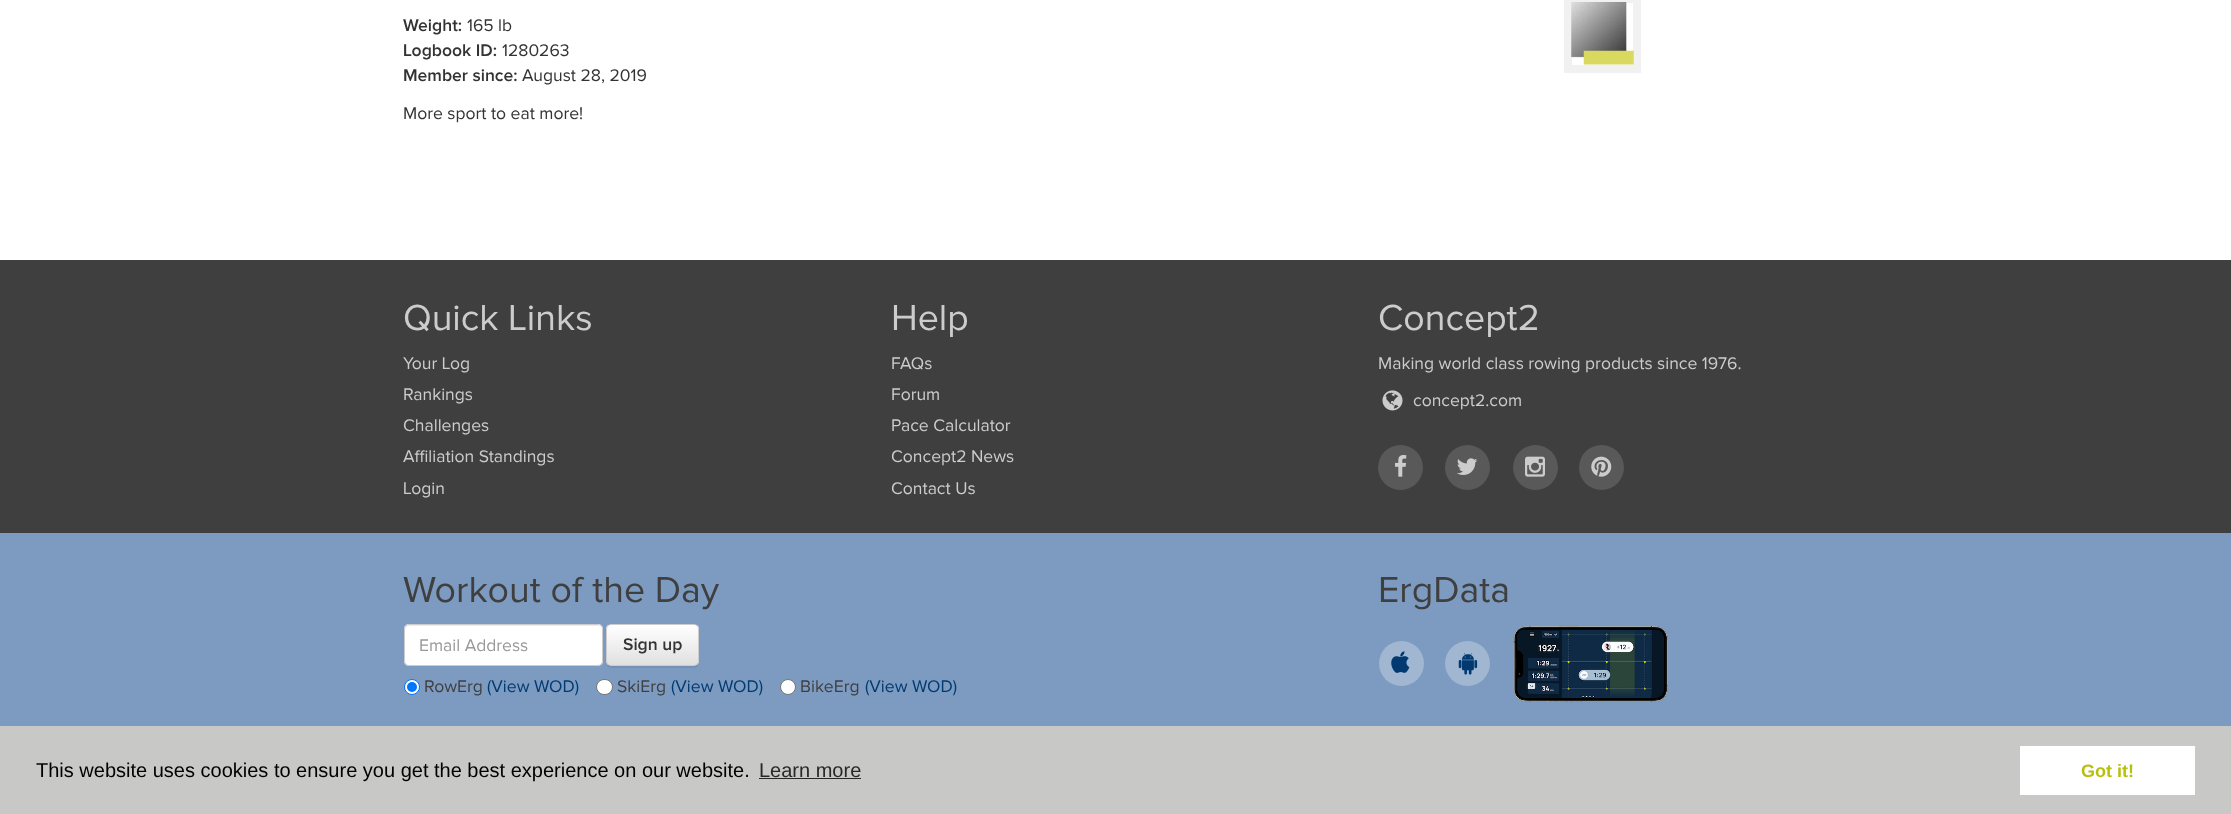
<svg xmlns="http://www.w3.org/2000/svg" width="2231" height="814">
<defs>
<clipPath id="clip1"><rect x="606" y="624" width="93" height="42" rx="5"/></clipPath>
<linearGradient id="g1" gradientUnits="userSpaceOnUse" x1="653" y1="625" x2="653" y2="665"><stop offset="0" stop-color="#fff"/><stop offset="1" stop-color="#e0e0e0"/></linearGradient>
</defs>
<rect width="100%" height="100%" fill="#fff"/>
<text x="403" y="31" style="font-family:Proxima Nova;font-size:17.5px;font-weight:600;fill:#333">Weight:</text>
<text x="467" y="31" style="font-family:Proxima Nova;font-size:17.5px;fill:#333">165 lb</text>
<text x="403" y="56" style="font-family:Proxima Nova;font-size:17.5px;font-weight:600;fill:#333">Logbook ID:</text>
<text x="502" y="56" style="font-family:Proxima Nova;font-size:17.5px;fill:#333">1280263</text>
<text x="403" y="81" style="font-family:Proxima Nova;font-size:17.5px;font-weight:600;fill:#333">Member since:</text>
<text x="522" y="81" style="font-family:Proxima Nova;font-size:17.5px;fill:#333">August 28, 2019</text>
<text x="403" y="119" style="font-family:Proxima Nova;font-size:17.5px;fill:#333">More sport to eat more!</text>
<rect x="1568" y="-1" width="69" height="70" fill="none" stroke="#f1f1f1" stroke-width="8"/>
<image x="1571" y="2" width="63" height="63" href="media/1.png"/>
<rect y="260" width="2231" height="273" fill="#3f3f3f"/>
<text x="403" y="330" style="font-family:Proxima Nova;font-size:37.5px;fill:#ccc">Quick Links</text>
<text x="403" y="369" style="font-family:Proxima Nova;font-size:17.5px;fill:#ccc">Your Log</text>
<text x="403" y="400" style="font-family:Proxima Nova;font-size:17.5px;fill:#ccc">Rankings</text>
<text x="403" y="431" style="font-family:Proxima Nova;font-size:17.5px;fill:#ccc">Challenges</text>
<text x="403" y="462" style="font-family:Proxima Nova;font-size:17.5px;fill:#ccc">Affiliation Standings</text>
<text x="403" y="494" style="font-family:Proxima Nova;font-size:17.5px;fill:#ccc">Login</text>
<text x="891" y="330" style="font-family:Proxima Nova;font-size:37.5px;fill:#ccc">Help</text>
<text x="891" y="369" style="font-family:Proxima Nova;font-size:17.5px;fill:#ccc">FAQs</text>
<text x="891" y="400" style="font-family:Proxima Nova;font-size:17.5px;fill:#ccc">Forum</text>
<text x="891" y="431" style="font-family:Proxima Nova;font-size:17.5px;fill:#ccc">Pace Calculator</text>
<text x="891" y="462" style="font-family:Proxima Nova;font-size:17.5px;fill:#ccc">Concept2 News</text>
<text x="891" y="494" style="font-family:Proxima Nova;font-size:17.5px;fill:#ccc">Contact Us</text>
<text x="1378" y="330" style="font-family:Proxima Nova;font-size:37.5px;fill:#ccc">Concept2</text>
<text x="1378" y="369" style="font-family:Proxima Nova;font-size:17.5px;fill:#ccc">Making world class rowing products since 1976.</text>
<image x="1382" y="390" width="21" height="21" href="media/2.png"/>
<text x="1413" y="406" style="font-family:Proxima Nova;font-size:17.5px;fill:#ccc">concept2.com</text>
<circle cx="1400.5" cy="467.5" r="22.5" fill="#595959"/>
<image x="1395" y="455" width="12" height="22" href="media/3.png"/>
<circle cx="1467.5" cy="467.5" r="22.5" fill="#595959"/>
<image x="1457" y="458" width="21" height="17" href="media/4.png"/>
<circle cx="1535.5" cy="467.5" r="22.5" fill="#595959"/>
<image x="1525" y="456" width="20" height="21" href="media/5.png"/>
<circle cx="1601.5" cy="467.5" r="22.5" fill="#595959"/>
<image x="1591" y="456" width="21" height="21" href="media/6.png"/>
<rect y="533" width="2231" height="193" fill="#7d9bc1"/>
<text x="403" y="602" style="font-family:Proxima Nova;font-size:37.5px;fill:#3f3f3f">Workout of the Day</text>
<rect x="404" y="624" width="199" height="42" rx="5" fill="#fff"/>
<path d="M409 626h189c2 0 3 2 3 4v-1c0-2-2-4-4-4h-188c-2 0-4 2-4 4v1c0-2 2-4 4-4z" fill="#ececec"/>
<rect x="404.5" y="624.5" width="198" height="41" rx="4.5" fill="none" stroke="#ccc"/>
<text x="419" y="651" style="font-family:Proxima Nova;font-size:17.5px;fill:#999">Email Address</text>
<rect x="606" y="625" width="93" height="43" rx="5" fill="#00000012" filter="blur(0.5px)"/>
<g clip-path="url(#clip1)">
<rect x="606" y="625" width="93" height="40" fill="url(#g1)"/>
</g>
<rect x="606.5" y="624.5" width="92" height="41" rx="4.5" fill="none" stroke="#ccc"/>
<text x="623" y="650" style="font-family:Proxima Nova;font-size:17.5px;font-weight:600;fill:#333">Sign up</text>
<circle cx="412" cy="687" r="7.5" fill="#fff" stroke="#0075ff"/>
<circle cx="412" cy="687" r="5" fill="#0075ff"/>
<text x="424" y="692" style="font-family:Proxima Nova;font-size:17.5px;fill:#3f3f3f">RowErg</text>
<text x="487" y="692" style="font-family:Proxima Nova;font-size:17.5px;fill:#003a70">(View WOD)</text>
<rect x="596.5" y="679.5" width="16" height="15" rx="7.5" fill="#fff" stroke="#767676"/>
<text x="617" y="692" style="font-family:Proxima Nova;font-size:17.5px;fill:#3f3f3f">SkiErg</text>
<text x="671" y="692" style="font-family:Proxima Nova;font-size:17.5px;fill:#003a70">(View WOD)</text>
<circle cx="788" cy="687" r="7.5" fill="#fff" stroke="#767676"/>
<text x="800" y="692" style="font-family:Proxima Nova;font-size:17.5px;fill:#3f3f3f">BikeErg</text>
<text x="865" y="692" style="font-family:Proxima Nova;font-size:17.5px;fill:#003a70">(View WOD)</text>
<text x="1378" y="602" style="font-family:Proxima Nova;font-size:37.5px;fill:#3f3f3f">ErgData</text>
<circle cx="1401.5" cy="663.5" r="22.5" fill="#a0b6d1"/>
<image x="1391" y="651" width="19" height="22" href="media/7.png"/>
<circle cx="1467.5" cy="663.5" r="22.5" fill="#a0b6d1"/>
<image x="1458" y="653" width="20" height="22" href="media/8.png"/>
<image x="1513" y="625" width="155" height="78" href="media/9.png"/>
<rect y="726" width="2231" height="88" fill="#c8c9c7"/>
<text x="36" y="777" style="font-family:Liberation Sans;font-size:20px;fill:#000">This website uses cookies to ensure you get the best experience on our website.</text>
<text x="759" y="777" style="font-family:Liberation Sans;font-size:20px;fill:#282828">Learn more</text>
<rect x="759" y="778" width="102" height="1" fill="#282828"/>
<rect x="2020" y="746" width="175" height="49" fill="#fff"/>
<text x="2081" y="777" style="font-family:Liberation Sans;font-size:18px;font-weight:bold;fill:#b7bf10">Got it!</text>
</svg>
